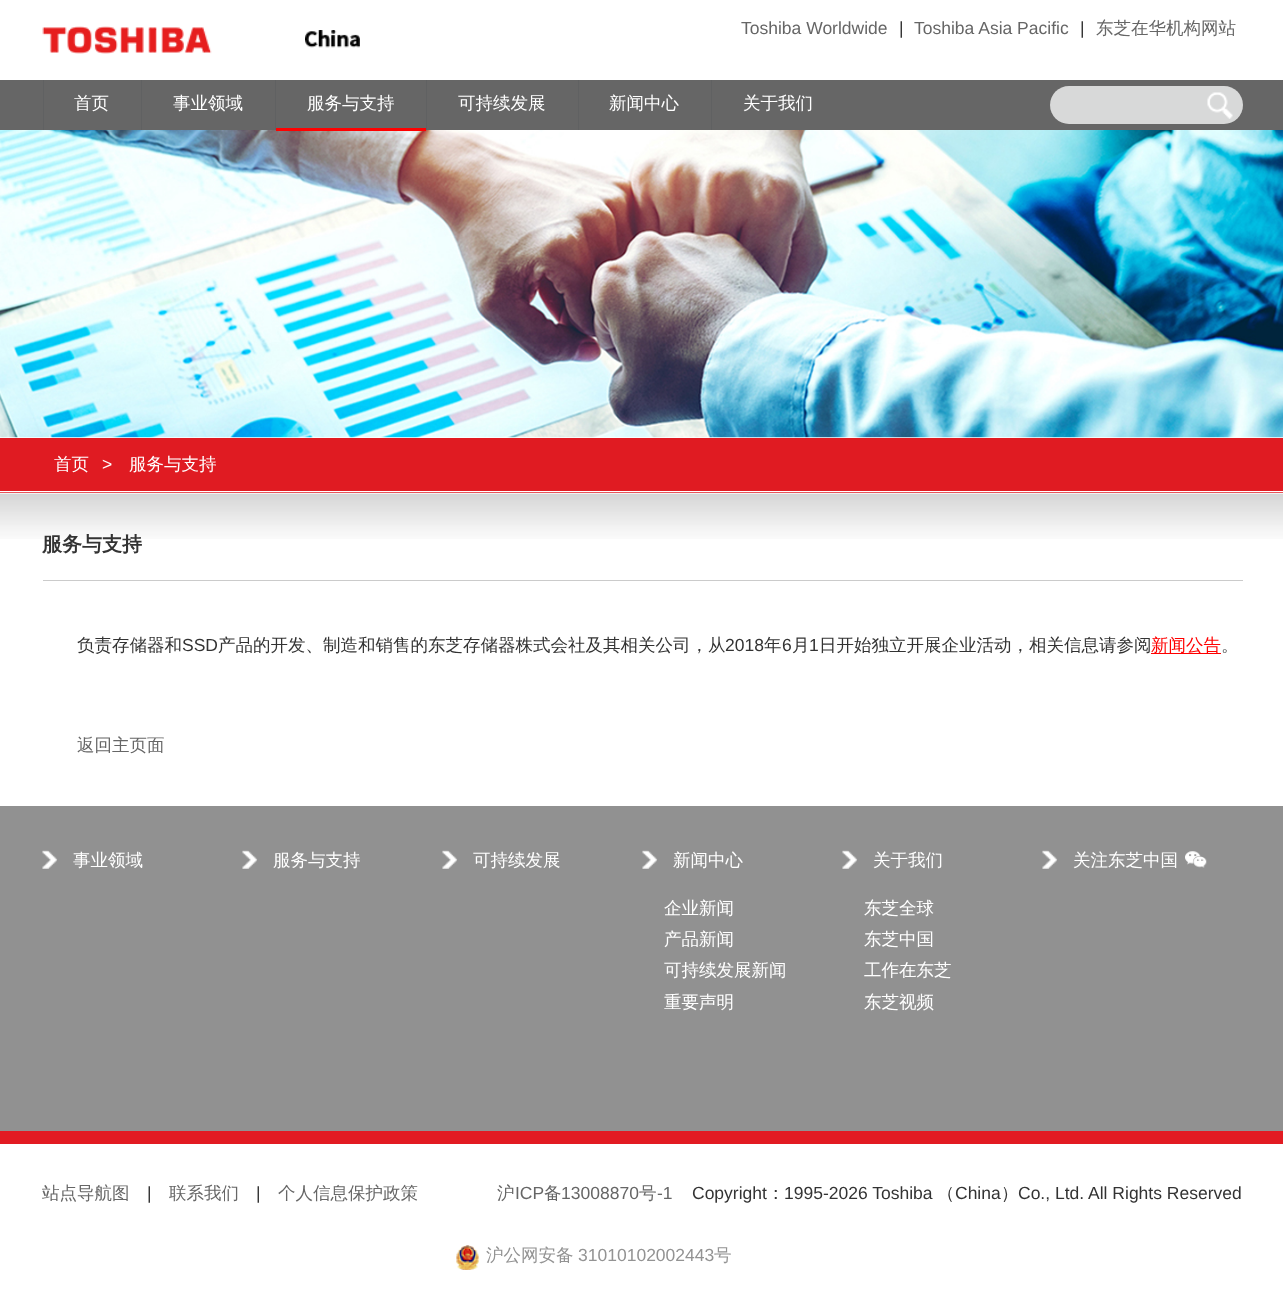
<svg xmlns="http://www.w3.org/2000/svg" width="1283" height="1306">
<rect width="100%" height="100%" fill="#fff"/>
<image x="42" y="26" width="170" height="28" href="media/1.png"/>
<image x="305" y="30" width="55" height="18" href="media/2.png"/>
<text x="741" y="34" style="font-family:Liberation Sans;font-size:17.5px;fill:#666">Toshiba Worldwide</text>
<text x="899" y="34" style="font-family:Liberation Sans;font-size:17.5px;fill:#333">|</text>
<text x="914" y="34" style="font-family:Liberation Sans;font-size:17.5px;fill:#666">Toshiba Asia Pacific</text>
<text x="1080" y="34" style="font-family:Liberation Sans;font-size:17.5px;fill:#333">|</text>
<text x="1096" y="34" style="font-family:WenQuanYi Zen Hei;font-size:17.5px;font-weight:500;fill:#666">东芝在华机构网站</text>
<rect y="80" width="1283" height="50" fill="#666"/>
<rect x="43" y="80" width="1" height="50" fill="#606162"/>
<text x="74" y="109" style="font-family:WenQuanYi Zen Hei;font-size:17.5px;font-weight:500;fill:#fff">首页</text>
<rect x="141" y="80" width="1" height="50" fill="#606162"/>
<text x="173" y="109" style="font-family:WenQuanYi Zen Hei;font-size:17.5px;font-weight:500;fill:#fff">事业领域</text>
<rect x="275" y="80" width="1" height="50" fill="#606162"/>
<image x="0" y="130" width="1283" height="308" href="media/4.png"/>
<rect x="276" y="128" width="150" height="3" fill="#f00"/>
<text x="307" y="109" style="font-family:WenQuanYi Zen Hei;font-size:17.5px;font-weight:500;fill:#fff">服务与支持</text>
<rect x="426" y="80" width="1" height="50" fill="#606162"/>
<text x="458" y="109" style="font-family:WenQuanYi Zen Hei;font-size:17.5px;font-weight:500;fill:#fff">可持续发展</text>
<rect x="578" y="80" width="1" height="50" fill="#606162"/>
<text x="609" y="109" style="font-family:WenQuanYi Zen Hei;font-size:17.5px;font-weight:500;fill:#fff">新闻中心</text>
<rect x="711" y="80" width="1" height="50" fill="#606162"/>
<text x="743" y="109" style="font-family:WenQuanYi Zen Hei;font-size:17.5px;font-weight:500;fill:#fff">关于我们</text>
<rect x="1050" y="86" width="193" height="38" rx="19" fill="#d8d9d9"/>
<image x="1207" y="92" width="26" height="27" href="media/3.png"/>
<rect y="438" width="1283" height="55" fill="#e01b22"/>
<rect y="491" width="1283" height="1" fill="#fff"/>
<text x="54" y="470" style="font-family:WenQuanYi Zen Hei;font-size:17.5px;font-weight:500;fill:#fff">首页</text>
<text x="102" y="470" style="font-family:Liberation Sans;font-size:17.5px;fill:#fff">&gt;</text>
<text x="129" y="470" style="font-family:WenQuanYi Zen Hei;font-size:17.5px;font-weight:500;fill:#fff">服务与支持</text>
<image x="0" y="492" width="1283" height="47" href="media/5.png"/>
<rect x="43" y="580" width="1200" height="1" fill="#cbcbcb"/>
<text x="42" y="551" style="font-family:WenQuanYi Zen Hei;font-size:20px;font-weight:bold;fill:#333">服务与支持</text>
<text x="77" y="651" style="font-family:WenQuanYi Zen Hei;font-size:17.5px;font-weight:500;fill:#333">负责存储器和</text>
<text x="182" y="651" style="font-family:Liberation Sans;font-size:17.5px;fill:#333">SSD</text>
<text x="218" y="651" style="font-family:WenQuanYi Zen Hei;font-size:17.5px;font-weight:500;fill:#333">产品的开发、制造和销售的东芝存储器株式会社及其相关公司，从</text>
<text x="725" y="651" style="font-family:Liberation Sans;font-size:17.5px;fill:#333">2018</text>
<text x="764" y="651" style="font-family:WenQuanYi Zen Hei;font-size:17.5px;font-weight:500;fill:#333">年</text>
<text x="782" y="651" style="font-family:Liberation Sans;font-size:17.5px;fill:#333">6</text>
<text x="792" y="651" style="font-family:WenQuanYi Zen Hei;font-size:17.5px;font-weight:500;fill:#333">月</text>
<text x="809" y="651" style="font-family:Liberation Sans;font-size:17.5px;fill:#333">1</text>
<text x="819" y="651" style="font-family:WenQuanYi Zen Hei;font-size:17.5px;font-weight:500;fill:#333">日开始独立开展企业活动，相关信息请参阅</text>
<rect x="1151" y="653" width="70" height="1" fill="#f00"/>
<text x="1151" y="651" style="font-family:WenQuanYi Zen Hei;font-size:17.5px;font-weight:500;fill:#f00">新闻公告</text>
<text x="1221" y="651" style="font-family:WenQuanYi Zen Hei;font-size:17.5px;font-weight:500;fill:#333">。</text>
<text x="77" y="751" style="font-family:WenQuanYi Zen Hei;font-size:17.5px;font-weight:500;fill:#666">返回主页面</text>
<rect y="806" width="1283" height="325" fill="#919191"/>
<rect y="1131" width="1283" height="13" fill="#e21b22"/>
<image x="42" y="850" width="16" height="19" href="media/6.png"/>
<text x="73" y="866" style="font-family:WenQuanYi Zen Hei;font-size:17.5px;font-weight:500;fill:#fff">事业领域</text>
<image x="242" y="850" width="16" height="19" href="media/6.png"/>
<text x="273" y="866" style="font-family:WenQuanYi Zen Hei;font-size:17.5px;font-weight:500;fill:#fff">服务与支持</text>
<image x="442" y="850" width="16" height="19" href="media/6.png"/>
<text x="473" y="866" style="font-family:WenQuanYi Zen Hei;font-size:17.5px;font-weight:500;fill:#fff">可持续发展</text>
<image x="642" y="850" width="16" height="19" href="media/6.png"/>
<text x="673" y="866" style="font-family:WenQuanYi Zen Hei;font-size:17.5px;font-weight:500;fill:#fff">新闻中心</text>
<text x="664" y="914" style="font-family:WenQuanYi Zen Hei;font-size:17.5px;font-weight:500;fill:#fff">企业新闻</text>
<text x="664" y="945" style="font-family:WenQuanYi Zen Hei;font-size:17.5px;font-weight:500;fill:#fff">产品新闻</text>
<text x="664" y="976" style="font-family:WenQuanYi Zen Hei;font-size:17.5px;font-weight:500;fill:#fff">可持续发展新闻</text>
<text x="664" y="1008" style="font-family:WenQuanYi Zen Hei;font-size:17.5px;font-weight:500;fill:#fff">重要声明</text>
<image x="842" y="850" width="16" height="19" href="media/6.png"/>
<text x="873" y="866" style="font-family:WenQuanYi Zen Hei;font-size:17.5px;font-weight:500;fill:#fff">关于我们</text>
<text x="864" y="914" style="font-family:WenQuanYi Zen Hei;font-size:17.5px;font-weight:500;fill:#fff">东芝全球</text>
<text x="864" y="945" style="font-family:WenQuanYi Zen Hei;font-size:17.5px;font-weight:500;fill:#fff">东芝中国</text>
<text x="864" y="976" style="font-family:WenQuanYi Zen Hei;font-size:17.5px;font-weight:500;fill:#fff">工作在东芝</text>
<text x="864" y="1008" style="font-family:WenQuanYi Zen Hei;font-size:17.5px;font-weight:500;fill:#fff">东芝视频</text>
<image x="1042" y="850" width="16" height="19" href="media/6.png"/>
<text x="1073" y="866" style="font-family:WenQuanYi Zen Hei;font-size:17.5px;font-weight:500;fill:#fff">关注东芝中国</text>
<image x="1185" y="851" width="22" height="17" href="media/7.png"/>
<text x="42" y="1199" style="font-family:WenQuanYi Zen Hei;font-size:17.5px;font-weight:500;fill:#666">站点导航图</text>
<text x="147" y="1199" style="font-family:Liberation Sans;font-size:17.5px;fill:#333">|</text>
<text x="169" y="1199" style="font-family:WenQuanYi Zen Hei;font-size:17.5px;font-weight:500;fill:#666">联系我们</text>
<text x="256" y="1199" style="font-family:Liberation Sans;font-size:17.5px;fill:#333">|</text>
<text x="278" y="1199" style="font-family:WenQuanYi Zen Hei;font-size:17.5px;font-weight:500;fill:#666">个人信息保护政策</text>
<text x="497" y="1199" style="font-family:WenQuanYi Zen Hei;font-size:17.5px;font-weight:500;fill:#666">沪</text>
<text x="515" y="1199" style="font-family:Liberation Sans;font-size:17.5px;fill:#666">ICP</text>
<text x="544" y="1199" style="font-family:WenQuanYi Zen Hei;font-size:17.5px;font-weight:500;fill:#666">备</text>
<text x="561" y="1199" style="font-family:Liberation Sans;font-size:17.5px;fill:#666">13008870</text>
<text x="639" y="1199" style="font-family:WenQuanYi Zen Hei;font-size:17.5px;font-weight:500;fill:#666">号</text>
<text x="657" y="1199" style="font-family:Liberation Sans;font-size:17.5px;fill:#666">-1</text>
<text x="692" y="1199" style="font-family:Liberation Sans;font-size:17.5px;fill:#333">Copyright</text>
<text x="767" y="1199" style="font-family:WenQuanYi Zen Hei;font-size:17.5px;font-weight:500;fill:#333">：</text>
<text x="784" y="1199" style="font-family:Liberation Sans;font-size:17.5px;fill:#333">1995-2026 Toshiba</text>
<text x="937" y="1199" style="font-family:WenQuanYi Zen Hei;font-size:17.5px;font-weight:500;fill:#333">（</text>
<text x="955" y="1199" style="font-family:Liberation Sans;font-size:17.5px;fill:#333">China</text>
<text x="1001" y="1199" style="font-family:WenQuanYi Zen Hei;font-size:17.5px;font-weight:500;fill:#333">）</text>
<text x="1018" y="1199" style="font-family:Liberation Sans;font-size:17.5px;fill:#333">Co., Ltd. All Rights Reserved</text>
<image x="456" y="1245" width="23" height="25" href="media/8.png"/>
<text x="486" y="1261" style="font-family:WenQuanYi Zen Hei;font-size:17.5px;font-weight:500;fill:#939393">沪公网安备</text>
<text x="578" y="1261" style="font-family:Liberation Sans;font-size:17.5px;fill:#939393">31010102002443</text>
<text x="714" y="1261" style="font-family:WenQuanYi Zen Hei;font-size:17.5px;font-weight:500;fill:#939393">号</text>
</svg>
